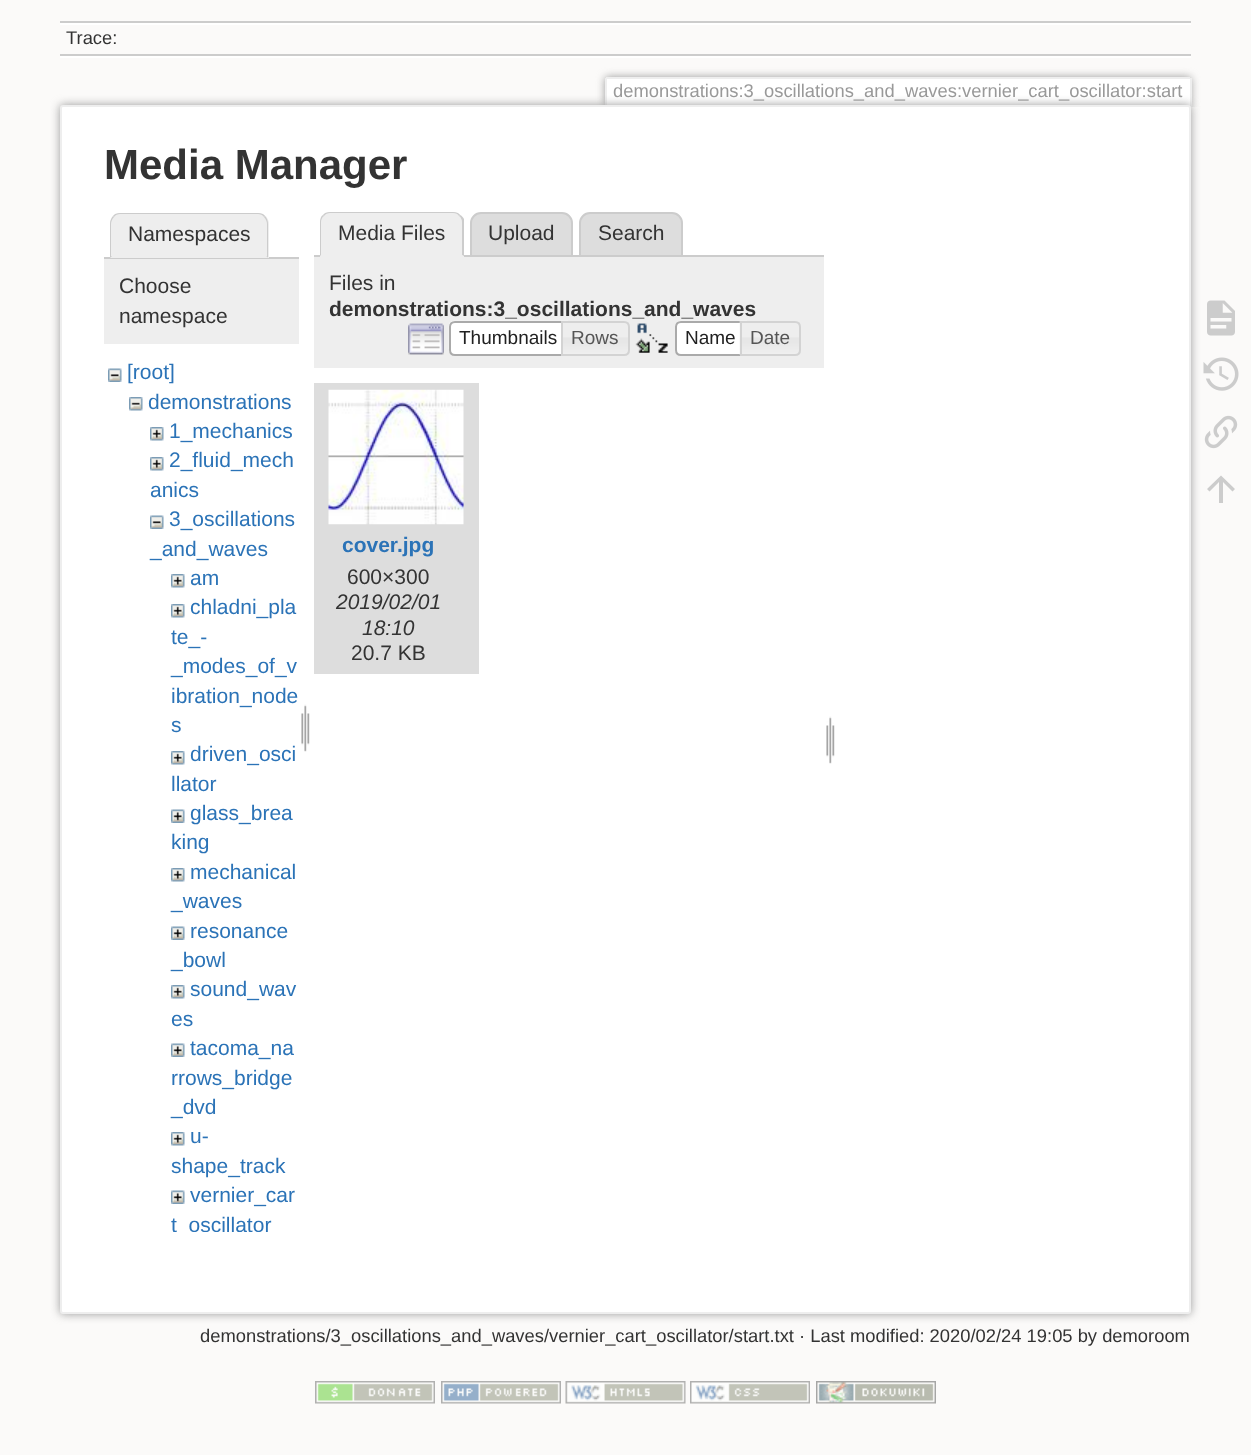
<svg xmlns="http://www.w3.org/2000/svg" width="1251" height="1455">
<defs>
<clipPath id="clip1"><rect x="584" y="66" width="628" height="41"/></clipPath>
<clipPath id="clip2"><rect x="104" y="359" width="195" height="873"/></clipPath>
</defs>
<rect width="100%" height="100%" fill="#fbfaf9"/>
<rect x="60" y="21" width="1131" height="2" fill="#ccc"/>
<rect x="60" y="56" width="1131" height="2" fill="#fff"/>
<rect x="60" y="23" width="1131" height="2" fill="#fff"/>
<rect x="60" y="54" width="1131" height="2" fill="#ccc"/>
<text x="66" y="44" style="font-family:Liberation Sans;font-size:18.38px;fill:#333">Trace:</text>
<g clip-path="url(#clip1)">
<rect x="605" y="77" width="586" height="30" rx="3" fill="#999" filter="blur(4.5px)"/>
</g>
<rect x="607" y="79" width="583" height="27" fill="#fff"/>
<rect x="606" y="77" width="584" height="2" fill="#eee"/>
<rect x="1190" y="78" width="2" height="29" fill="#eee"/>
<rect x="605" y="78" width="2" height="29" fill="#eee"/>
<text x="613" y="97" style="font-family:Liberation Sans;font-size:18.38px;fill:#999">demonstrations:3_oscillations_and_waves:vernier_cart_oscillator:start</text>
<rect x="60" y="105" width="1131" height="1209" rx="3" fill="#999" filter="blur(5px)"/>
<rect x="61" y="106" width="1129" height="1207" rx="2" fill="#fff" stroke="#eee" stroke-width="2"/>
<text x="104" y="179" style="font-family:Liberation Sans;font-size:42px;font-weight:bold;fill:#333">Media Manager</text>
<rect x="104" y="257" width="195" height="2" fill="#ccc"/>
<path d="M121 213h137c6 0 11 5 11 11v34h-159v-34c0-6 5-11 11-11z" fill="#eee"/>
<path d="M120 213c-3 0-6 1-7 3l1 1c1-2 4-3 6-3h138c2 0 5 1 6 3l1-1c-1-2-4-3-7-3z" fill="#ccc"/>
<path d="M265 216c2 2 3 5 3 8v34l-2-2h1v-32c0-2-1-5-3-7z" fill="#ccc"/>
<path d="M110 258h158l-2-2h-154z" fill="#eee"/>
<path d="M113 216c-2 2-3 5-3 8v34l2-2h-1v-32c0-2 1-5 3-7z" fill="#ccc"/>
<text x="128" y="241" style="font-family:Liberation Sans;font-size:21px;fill:#333">Namespaces</text>
<rect x="104" y="259" width="195" height="85" fill="#eee"/>
<text x="119" y="293" style="font-family:Liberation Sans;font-size:21px;fill:#333">Choose</text>
<text x="119" y="323" style="font-family:Liberation Sans;font-size:21px;fill:#333">namespace</text>
<image x="108" y="368" width="14" height="14" href="media/1.png"/>
<text x="127" y="379" style="font-family:Liberation Sans;font-size:21px;fill:#2b73b7">[root]</text>
<image x="129" y="397" width="14" height="14" href="media/2.png"/>
<text x="148" y="409" style="font-family:Liberation Sans;font-size:21px;fill:#2b73b7">demonstrations</text>
<image x="150" y="427" width="14" height="14" href="media/3.png"/>
<text x="169" y="438" style="font-family:Liberation Sans;font-size:21px;fill:#2b73b7">1_mechanics</text>
<image x="150" y="457" width="14" height="14" href="media/3.png"/>
<text x="169" y="467" style="font-family:Liberation Sans;font-size:21px;fill:#2b73b7">2_fluid_mech</text>
<text x="150" y="497" style="font-family:Liberation Sans;font-size:21px;fill:#2b73b7">anics</text>
<image x="150" y="515" width="14" height="14" href="media/1.png"/>
<text x="169" y="526" style="font-family:Liberation Sans;font-size:21px;fill:#2b73b7">3_oscillations</text>
<text x="150" y="556" style="font-family:Liberation Sans;font-size:21px;fill:#2b73b7">_and_waves</text>
<image x="171" y="574" width="14" height="14" href="media/3.png"/>
<text x="190" y="585" style="font-family:Liberation Sans;font-size:21px;fill:#2b73b7">am</text>
<image x="171" y="604" width="14" height="14" href="media/3.png"/>
<text x="190" y="614" style="font-family:Liberation Sans;font-size:21px;fill:#2b73b7">chladni_pla</text>
<text x="171" y="644" style="font-family:Liberation Sans;font-size:21px;fill:#2b73b7">te_-</text>
<text x="171" y="673" style="font-family:Liberation Sans;font-size:21px;fill:#2b73b7">_modes_of_v</text>
<text x="171" y="703" style="font-family:Liberation Sans;font-size:21px;fill:#2b73b7">ibration_node</text>
<text x="171" y="732" style="font-family:Liberation Sans;font-size:21px;fill:#2b73b7">s</text>
<image x="171" y="751" width="14" height="14" href="media/3.png"/>
<text x="190" y="761" style="font-family:Liberation Sans;font-size:21px;fill:#2b73b7">driven_osci</text>
<text x="171" y="791" style="font-family:Liberation Sans;font-size:21px;fill:#2b73b7">llator</text>
<image x="171" y="809" width="14" height="14" href="media/4.png"/>
<text x="190" y="820" style="font-family:Liberation Sans;font-size:21px;fill:#2b73b7">glass_brea</text>
<text x="171" y="849" style="font-family:Liberation Sans;font-size:21px;fill:#2b73b7">king</text>
<image x="171" y="868" width="14" height="14" href="media/3.png"/>
<text x="190" y="879" style="font-family:Liberation Sans;font-size:21px;fill:#2b73b7">mechanical</text>
<text x="171" y="908" style="font-family:Liberation Sans;font-size:21px;fill:#2b73b7">_waves</text>
<image x="171" y="926" width="14" height="14" href="media/4.png"/>
<text x="190" y="938" style="font-family:Liberation Sans;font-size:21px;fill:#2b73b7">resonance</text>
<text x="171" y="967" style="font-family:Liberation Sans;font-size:21px;fill:#2b73b7">_bowl</text>
<image x="171" y="985" width="14" height="14" href="media/3.png"/>
<text x="190" y="996" style="font-family:Liberation Sans;font-size:21px;fill:#2b73b7">sound_wav</text>
<text x="171" y="1026" style="font-family:Liberation Sans;font-size:21px;fill:#2b73b7">es</text>
<image x="171" y="1043" width="14" height="14" href="media/4.png"/>
<text x="190" y="1055" style="font-family:Liberation Sans;font-size:21px;fill:#2b73b7">tacoma_na</text>
<text x="171" y="1085" style="font-family:Liberation Sans;font-size:21px;fill:#2b73b7">rrows_bridge</text>
<text x="171" y="1114" style="font-family:Liberation Sans;font-size:21px;fill:#2b73b7">_dvd</text>
<image x="171" y="1132" width="14" height="14" href="media/3.png"/>
<text x="190" y="1143" style="font-family:Liberation Sans;font-size:21px;fill:#2b73b7">u-</text>
<text x="171" y="1173" style="font-family:Liberation Sans;font-size:21px;fill:#2b73b7">shape_track</text>
<image x="171" y="1190" width="14" height="14" href="media/4.png"/>
<text x="190" y="1202" style="font-family:Liberation Sans;font-size:21px;fill:#2b73b7">vernier_car</text>
<g clip-path="url(#clip2)">
<text x="171" y="1232" style="font-family:Liberation Sans;font-size:21px;fill:#2b73b7">t_oscillator</text>
</g>
<image x="301" y="704" width="9" height="48" href="media/5.png"/>
<path d="M481 213h81c5.5 0 10 4.5 10 10v33h-101v-33c0-5.5 4.5-10 10-10z" fill="#ddd" stroke="#ccc" stroke-width="2"/>
<path d="M590 213h82c5.5 0 10 4.5 10 10v33h-102v-33c0-5.5 4.5-10 10-10z" fill="#ddd" stroke="#ccc" stroke-width="2"/>
<rect x="314" y="255" width="510" height="2" fill="#ccc"/>
<path d="M331 212h122c6 0 11 5 11 11v34h-144v-34c0-6 5-11 11-11z" fill="#eee"/>
<path d="M330 212c-3 0-6 1-7 3l1 1c1-2 4-3 6-3h123c3 0 5 1 6 3l1-1c-1-2-4-3-7-3z" fill="#ccc"/>
<path d="M460 215c2 1 3 2 4 4v37l-2-1v-33c0-2-1-5-3-6z" fill="#ccc"/>
<path d="M463 256h-143l1-1h141z" fill="#eee"/>
<path d="M323 215c-2 1-3 4-3 7v34l1-1v-33c0-2 1-5 3-6z" fill="#ccc"/>
<text x="338" y="240" style="font-family:Liberation Sans;font-size:21px;fill:#333">Media Files</text>
<text x="488" y="240" style="font-family:Liberation Sans;font-size:21px;fill:#333">Upload</text>
<text x="598" y="240" style="font-family:Liberation Sans;font-size:21px;fill:#333">Search</text>
<rect x="314" y="257" width="510" height="111" fill="#eee"/>
<text x="329" y="290" style="font-family:Liberation Sans;font-size:21px;fill:#333">Files in</text>
<text x="329" y="316" style="font-family:Liberation Sans;font-size:21px;font-weight:bold;fill:#333">demonstrations:3_oscillations_and_waves</text>
<image x="408" y="323" width="36" height="32" href="media/6.png"/>
<path d="M455 321h114v35h-114c-3.5 0-6-2.5-6-6v-23c0-3.5 2.5-6 6-6z" fill="#fff"/>
<image x="448" y="320" width="120" height="29" href="media/7.png"/>
<path d="M455 322h113v33h-113c-3 0-5-2-5-5v-23c0-3 2-5 5-5z" fill="none" stroke="#aaa" stroke-width="2"/>
<text x="459" y="344" style="font-family:Liberation Sans;font-size:19px;fill:#212121">Thumbnails</text>
<image x="563" y="321" width="67" height="33" href="media/8.png"/>
<path d="M562 322h62c3 0 5 2 5 5v23c0 3-2 5-5 5h-62z" fill="none" stroke="#d3d3d3" stroke-width="2"/>
<text x="571" y="344" style="font-family:Liberation Sans;font-size:19px;fill:#555">Rows</text>
<image x="635" y="323" width="33" height="30" href="media/9.png"/>
<path d="M681 321h66v35h-66c-3.5 0-6-2.5-6-6v-23c0-3.5 2.5-6 6-6z" fill="#fff"/>
<image x="675" y="320" width="72" height="5" href="media/10.png"/>
<path d="M681 322h65v33h-65c-3 0-5-2-5-5v-23c0-3 2-5 5-5z" fill="none" stroke="#aaa" stroke-width="2"/>
<text x="685" y="344" style="font-family:Liberation Sans;font-size:19px;fill:#212121">Name</text>
<image x="739" y="321" width="62" height="34" href="media/11.png"/>
<path d="M741 322h54c3 0 5 2 5 5v23c0 3-2 5-5 5h-54z" fill="none" stroke="#d3d3d3" stroke-width="2"/>
<text x="750" y="344" style="font-family:Liberation Sans;font-size:19px;fill:#555">Date</text>
<rect x="314" y="383" width="165" height="291" fill="#ddd"/>
<image x="328" y="389" width="136" height="136" href="media/12.png"/>
<text x="342" y="552" style="font-family:Liberation Sans;font-size:21px;font-weight:bold;fill:#2b73b7">cover.jpg</text>
<text x="347" y="584" style="font-family:Liberation Sans;font-size:21px;fill:#333">600×300</text>
<text x="336" y="609" style="font-family:Liberation Sans;font-size:21px;font-style:italic;fill:#333">2019/02/01</text>
<text x="362" y="635" style="font-family:Liberation Sans;font-size:21px;font-style:italic;fill:#333">18:10</text>
<text x="351" y="660" style="font-family:Liberation Sans;font-size:21px;fill:#333">20.7 KB</text>
<image x="826" y="716" width="9" height="48" href="media/5.png"/>
<text x="200" y="1342" style="font-family:Liberation Sans;font-size:18.38px;fill:#333">demonstrations/3_oscillations_and_waves/vernier_cart_oscillator/start.txt · Last modified: 2020/02/24 19:05 by demoroom</text>
<image x="1207" y="300" width="28" height="36" href="media/13.png"/>
<image x="1203" y="357" width="36" height="34" href="media/14.png"/>
<image x="1204" y="415" width="34" height="34" href="media/15.png"/>
<path d="M1223 503h-4v-21l-9.5 9.5l-2.5-2.5l14-13.5l14 13.5l-2.5 2.5l-9.5-9.5z" fill="#ccc"/>
<image x="315" y="1381" width="120" height="23" href="media/16.png"/>
<image x="441" y="1381" width="120" height="23" href="media/17.png"/>
<image x="565" y="1381" width="121" height="23" href="media/18.png"/>
<image x="690" y="1381" width="120" height="23" href="media/19.png"/>
<image x="816" y="1381" width="120" height="23" href="media/20.png"/>
</svg>
